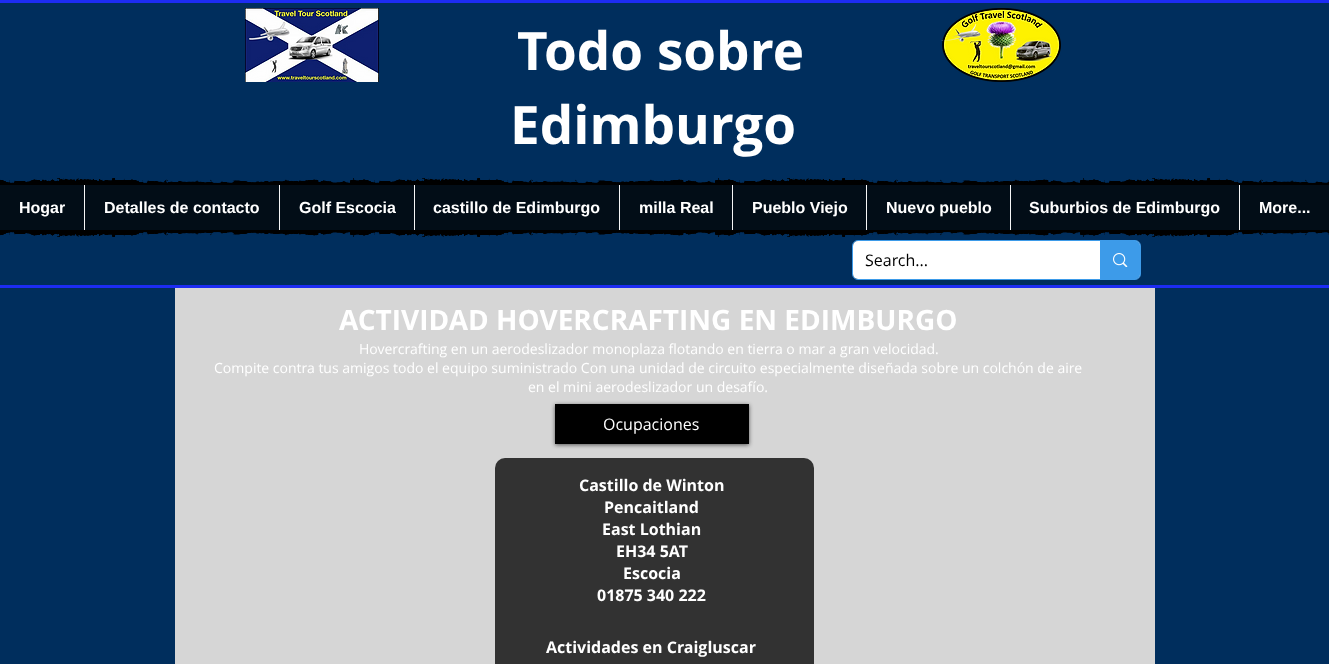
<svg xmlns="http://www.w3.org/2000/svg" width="1329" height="664">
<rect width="100%" height="100%" fill="#002e5d"/>
<rect width="1329" height="3" fill="#1d2cf3"/>
<rect y="285" width="1329" height="3" fill="#1d2cf3"/>
<image x="245" y="8" width="134" height="74" href="media/1.png"/>
<text x="517" y="70" style="font-family:Open Sans;font-size:53px;font-weight:bold;fill:#fff">Todo sobre</text>
<text x="510" y="144" style="font-family:Open Sans;font-size:53px;font-weight:bold;fill:#fff">Edimburgo</text>
<image x="941" y="8" width="120" height="74" href="media/2.png"/>
<image x="0" y="178" width="1329" height="7" href="media/3.png"/>
<rect y="185" width="1329" height="45" fill="#020d17"/>
<text x="19" y="213" style="font-family:Liberation Sans;font-size:16px;font-weight:bold;fill:#fff">Hogar</text>
<rect x="84" y="185" width="1" height="45" fill="#f5f5f6"/>
<text x="104" y="213" style="font-family:Liberation Sans;font-size:16px;font-weight:bold;fill:#fff">Detalles de contacto</text>
<rect x="279" y="185" width="1" height="45" fill="#f5f5f6"/>
<text x="299" y="213" style="font-family:Liberation Sans;font-size:16px;font-weight:bold;fill:#fff">Golf Escocia</text>
<rect x="414" y="185" width="1" height="45" fill="#f5f5f6"/>
<text x="433" y="213" style="font-family:Liberation Sans;font-size:16px;font-weight:bold;fill:#fff">castillo de Edimburgo</text>
<rect x="619" y="185" width="1" height="45" fill="#f5f5f6"/>
<text x="639" y="213" style="font-family:Liberation Sans;font-size:16px;font-weight:bold;fill:#fff">milla Real</text>
<rect x="732" y="185" width="1" height="45" fill="#f5f5f6"/>
<text x="752" y="213" style="font-family:Liberation Sans;font-size:16px;font-weight:bold;fill:#fff">Pueblo Viejo</text>
<rect x="866" y="185" width="1" height="45" fill="#f5f5f6"/>
<text x="886" y="213" style="font-family:Liberation Sans;font-size:16px;font-weight:bold;fill:#fff">Nuevo pueblo</text>
<rect x="1010" y="185" width="1" height="45" fill="#f5f5f6"/>
<text x="1029" y="213" style="font-family:Liberation Sans;font-size:16px;font-weight:bold;fill:#fff">Suburbios de Edimburgo</text>
<rect x="1239" y="185" width="1" height="45" fill="#f5f5f6"/>
<text x="1259" y="213" style="font-family:Liberation Sans;font-size:16px;font-weight:bold;fill:#fff">More...</text>
<image x="0" y="230" width="1329" height="7" href="media/4.png"/>
<rect x="852.5" y="240.5" width="288" height="39" rx="5.5" fill="none" stroke="#3d9be9"/>
<rect x="853" y="241" width="287" height="38" rx="5" fill="#fff"/>
<text x="865" y="266" style="font-family:Open Sans;font-size:16px;fill:#000">Search...</text>
<path d="M1100 241h35c3 0 5 2 5 5v28c0 3-2 5-5 5h-35z" fill="#3d9be9"/>
<image x="1113" y="253" width="15" height="14" href="media/5.png"/>
<rect x="175" y="288" width="980" height="376" fill="#d6d6d6"/>
<text x="339" y="330" style="font-family:Open Sans;font-size:28px;font-weight:bold;fill:#fff">ACTIVIDAD HOVERCRAFTING EN EDIMBURGO</text>
<text x="359" y="354" style="font-family:Open Sans;font-size:14px;fill:#fff">Hovercrafting en un aerodeslizador monoplaza flotando en tierra o mar a gran velocidad.</text>
<text x="214" y="373" style="font-family:Open Sans;font-size:14px;fill:#fff">Compite contra tus amigos todo el equipo suministrado Con una unidad de circuito especialmente diseñada sobre un colchón de aire</text>
<text x="528" y="392" style="font-family:Open Sans;font-size:14px;fill:#fff">en el mini aerodeslizador un desafío.</text>
<rect x="555" y="405" width="194" height="40" fill="#00000099" filter="blur(2px)"/>
<rect x="555" y="404" width="194" height="40" fill="#000"/>
<text x="603" y="430" style="font-family:Open Sans;font-size:16px;fill:#fff">Ocupaciones</text>
<rect x="495" y="458" width="319" height="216" rx="10" fill="#323232"/>
<text x="579" y="491" style="font-family:Open Sans;font-size:16px;font-weight:bold;fill:#fff">Castillo de Winton</text>
<text x="604" y="513" style="font-family:Open Sans;font-size:16px;font-weight:bold;fill:#fff">Pencaitland</text>
<text x="602" y="535" style="font-family:Open Sans;font-size:16px;font-weight:bold;fill:#fff">East Lothian</text>
<text x="616" y="557" style="font-family:Open Sans;font-size:16px;font-weight:bold;fill:#fff">EH34 5AT</text>
<text x="623" y="579" style="font-family:Open Sans;font-size:16px;font-weight:bold;fill:#fff">Escocia</text>
<text x="597" y="601" style="font-family:Open Sans;font-size:16px;font-weight:bold;fill:#fff">01875 340 222</text>
<text x="546" y="653" style="font-family:Open Sans;font-size:16px;font-weight:bold;fill:#fff">Actividades en Craigluscar</text>
</svg>
